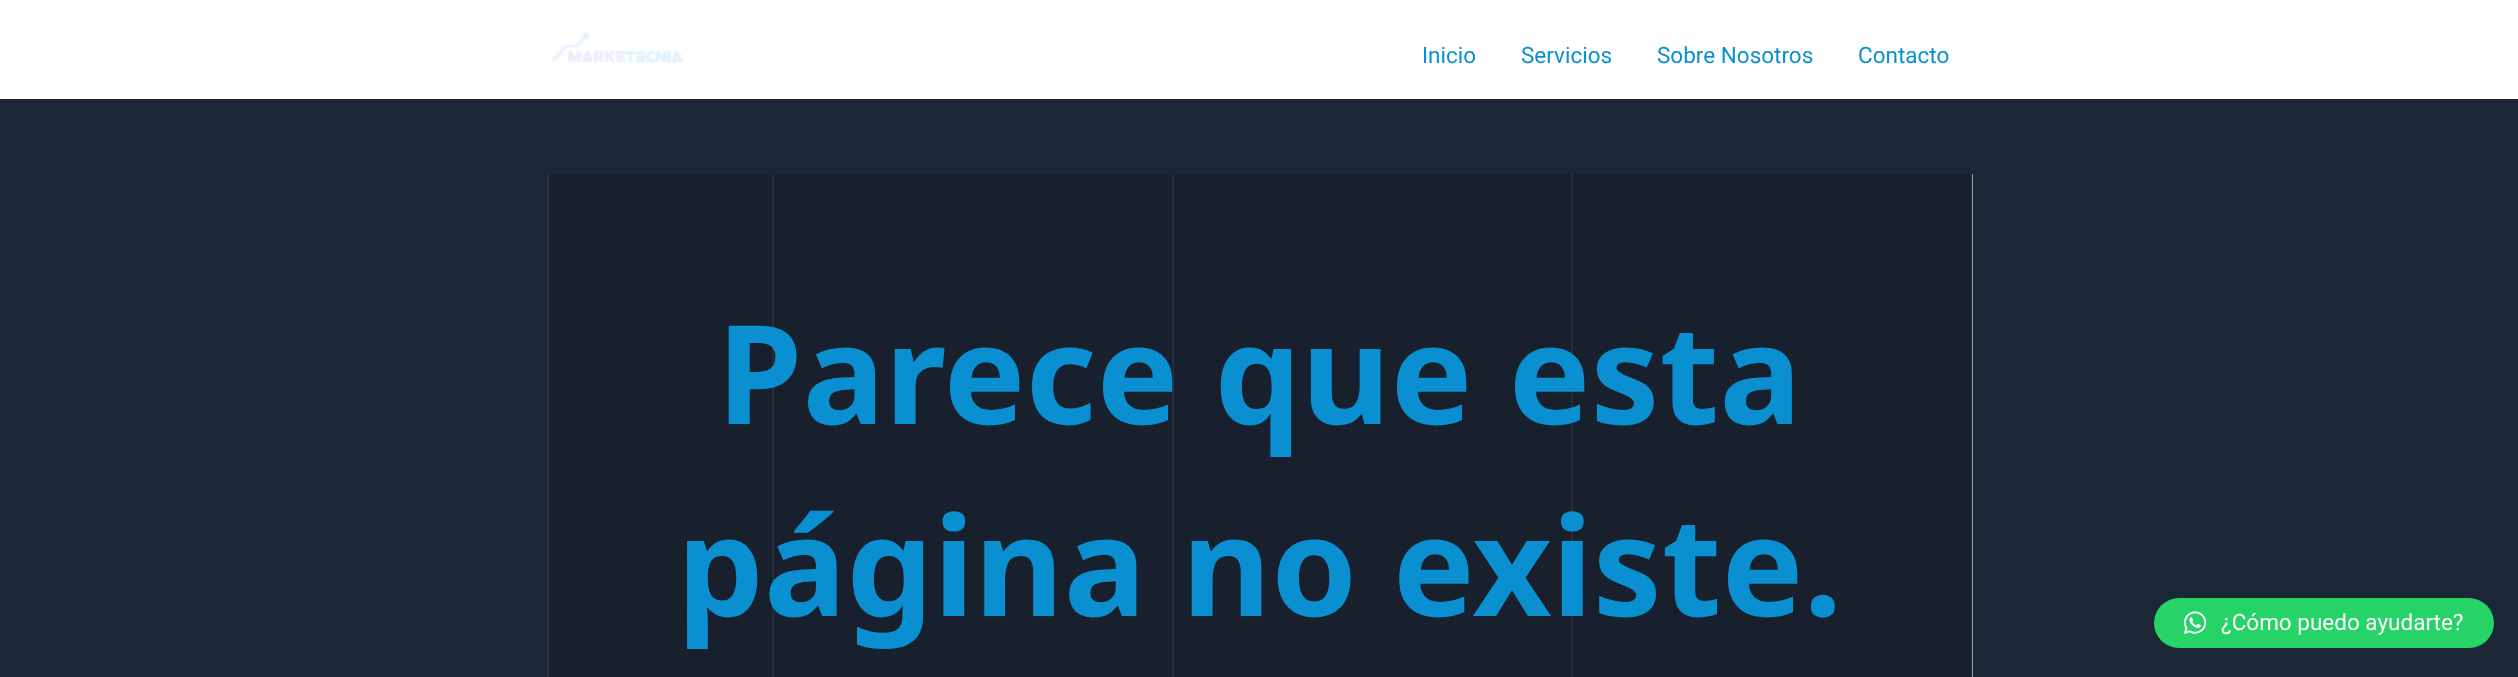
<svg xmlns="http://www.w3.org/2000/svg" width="2518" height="677">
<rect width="100%" height="100%" fill="#1c2735"/>
<rect width="2518" height="99" fill="#fff"/>
<image x="551" y="32" width="139" height="35" href="media/1.png"/>
<text x="1422" y="63" style="font-family:Roboto;font-size:22.5px;fill:#0a90d1">Inicio</text>
<text x="1521" y="63" style="font-family:Roboto;font-size:22.5px;fill:#0a90d1">Servicios</text>
<text x="1657" y="63" style="font-family:Roboto;font-size:22.5px;fill:#0a90d1">Sobre Nosotros</text>
<text x="1858" y="63" style="font-family:Roboto;font-size:22.5px;fill:#0a90d1">Contacto</text>
<rect x="1972" y="174" width="1" height="503" fill="#fff"/>
<image x="547" y="174" width="1426" height="503" href="media/2.png"/>
<text x="717" y="424" style="font-family:Noto Sans;font-size:137.5px;font-weight:bold;fill:#0a90d1">Parece que esta</text>
<text x="677" y="616" style="font-family:Noto Sans;font-size:137.5px;font-weight:bold;fill:#0a90d1">página no existe.</text>
<rect x="2154" y="598" width="340" height="50" rx="25" fill="#25d366"/>
<image x="2183" y="611" width="24" height="23" href="media/3.png"/>
<text x="2221" y="630" style="font-family:Roboto;font-size:22.5px;fill:#fff">¿Cómo puedo ayudarte?</text>
</svg>
